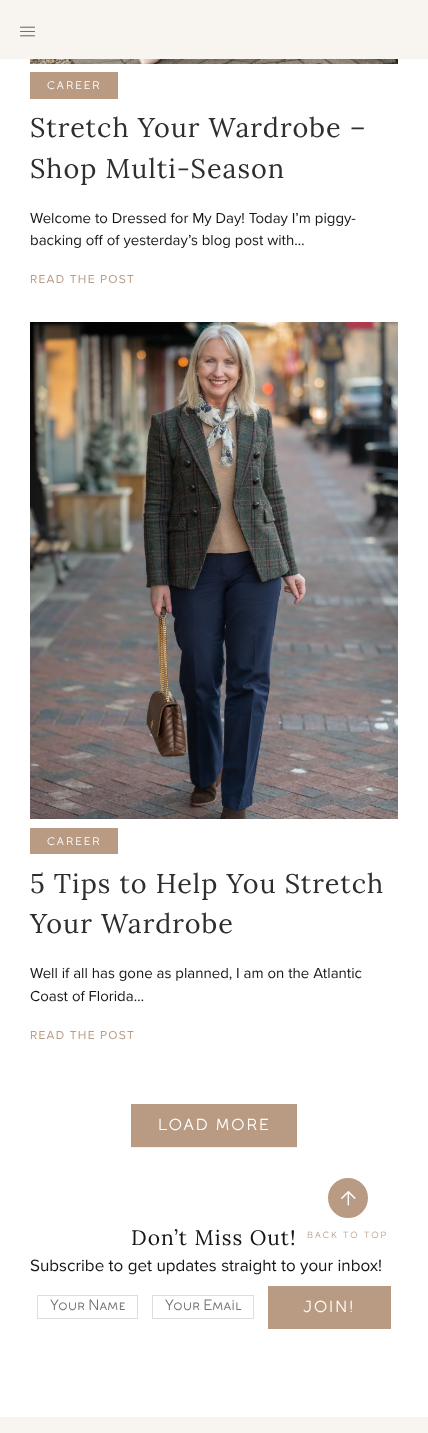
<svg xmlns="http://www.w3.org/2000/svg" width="428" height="1433">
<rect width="100%" height="100%" fill="#fff"/>
<rect width="428" height="59" fill="#f8f4ef"/>
<image x="20" y="26" width="15" height="11" href="media/1.png"/>
<image x="30" y="59" width="368" height="5" href="media/2.png"/>
<rect x="30" y="72" width="88" height="27" fill="#b99b84"/>
<text x="47" y="89" style="font-family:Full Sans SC;font-size:11px;letter-spacing:2px;fill:#fff">CAREER</text>
<text x="30" y="137" style="font-family:Lora;font-size:27px;letter-spacing:1px;fill:#2e2e2e">Stretch Your Wardrobe –</text>
<text x="30" y="178" style="font-family:Lora;font-size:27px;letter-spacing:1px;fill:#2e2e2e">Shop Multi-Season</text>
<text x="30" y="223" style="font-family:Proxima Nova;font-size:15px;fill:#161616">Welcome to Dressed for My Day! Today I’m piggy-</text>
<text x="30" y="245" style="font-family:Proxima Nova;font-size:15px;fill:#161616">backing off of yesterday’s blog post with…</text>
<text x="30" y="283" style="font-family:Proxima Nova;font-size:12px;letter-spacing:1.25px;fill:#b99b84">READ THE POST</text>
<image x="30" y="322" width="368" height="497" href="media/3.png"/>
<rect x="30" y="828" width="88" height="26" fill="#b99b84"/>
<text x="47" y="845" style="font-family:Full Sans SC;font-size:11px;letter-spacing:2px;fill:#fff">CAREER</text>
<text x="30" y="893" style="font-family:Lora;font-size:27px;letter-spacing:1px;fill:#2e2e2e">5 Tips to Help You Stretch</text>
<text x="30" y="933" style="font-family:Lora;font-size:27px;letter-spacing:1px;fill:#2e2e2e">Your Wardrobe</text>
<text x="30" y="978" style="font-family:Proxima Nova;font-size:15px;fill:#161616">Well if all has gone as planned, I am on the Atlantic</text>
<text x="30" y="1001" style="font-family:Proxima Nova;font-size:15px;fill:#161616">Coast of Florida…</text>
<text x="30" y="1039" style="font-family:Proxima Nova;font-size:12px;letter-spacing:1.25px;fill:#b99b84">READ THE POST</text>
<rect x="131" y="1105" width="166" height="43" fill="#0000000d" filter="blur(0.5px)"/>
<rect x="131" y="1104" width="166" height="43" fill="#b99b84"/>
<text x="158" y="1130" style="font-family:Full Sans SC;font-size:16px;letter-spacing:2px;fill:#fff">LOAD MORE</text>
<text x="131" y="1245" style="font-family:Lora;font-size:21px;letter-spacing:1px;fill:#161616">Don’t Miss Out!</text>
<text x="30" y="1271" style="font-family:Proxima Nova;font-size:17px;fill:#161616">Subscribe to get updates straight to your inbox!</text>
<rect x="37.5" y="1295.5" width="100" height="23" fill="none" stroke="#ddd"/>
<text x="50" y="1310" style="font-family:Full Sans SC;font-size:15px;fill:#757575">Your Name</text>
<rect x="152.5" y="1295.5" width="101" height="23" fill="none" stroke="#ddd"/>
<text x="165" y="1310" style="font-family:Full Sans SC;font-size:15px;fill:#757575">Your Email</text>
<rect x="268" y="1286" width="123" height="43" fill="#b99b84"/>
<text x="303" y="1312" style="font-family:Full Sans SC;font-size:16px;letter-spacing:2px;fill:#fff">JOIN!</text>
<circle cx="348" cy="1198" r="19" fill="#b99b84" stroke="#b99b84" stroke-width="2"/>
<image x="341" y="1191" width="15" height="15" href="media/4.png"/>
<text x="307" y="1238" style="font-family:Full Sans SC;font-size:9px;letter-spacing:2px;fill:#b99b84">BACK TO TOP</text>
<rect y="1417" width="428" height="16" fill="#f8f4ef"/>
</svg>
